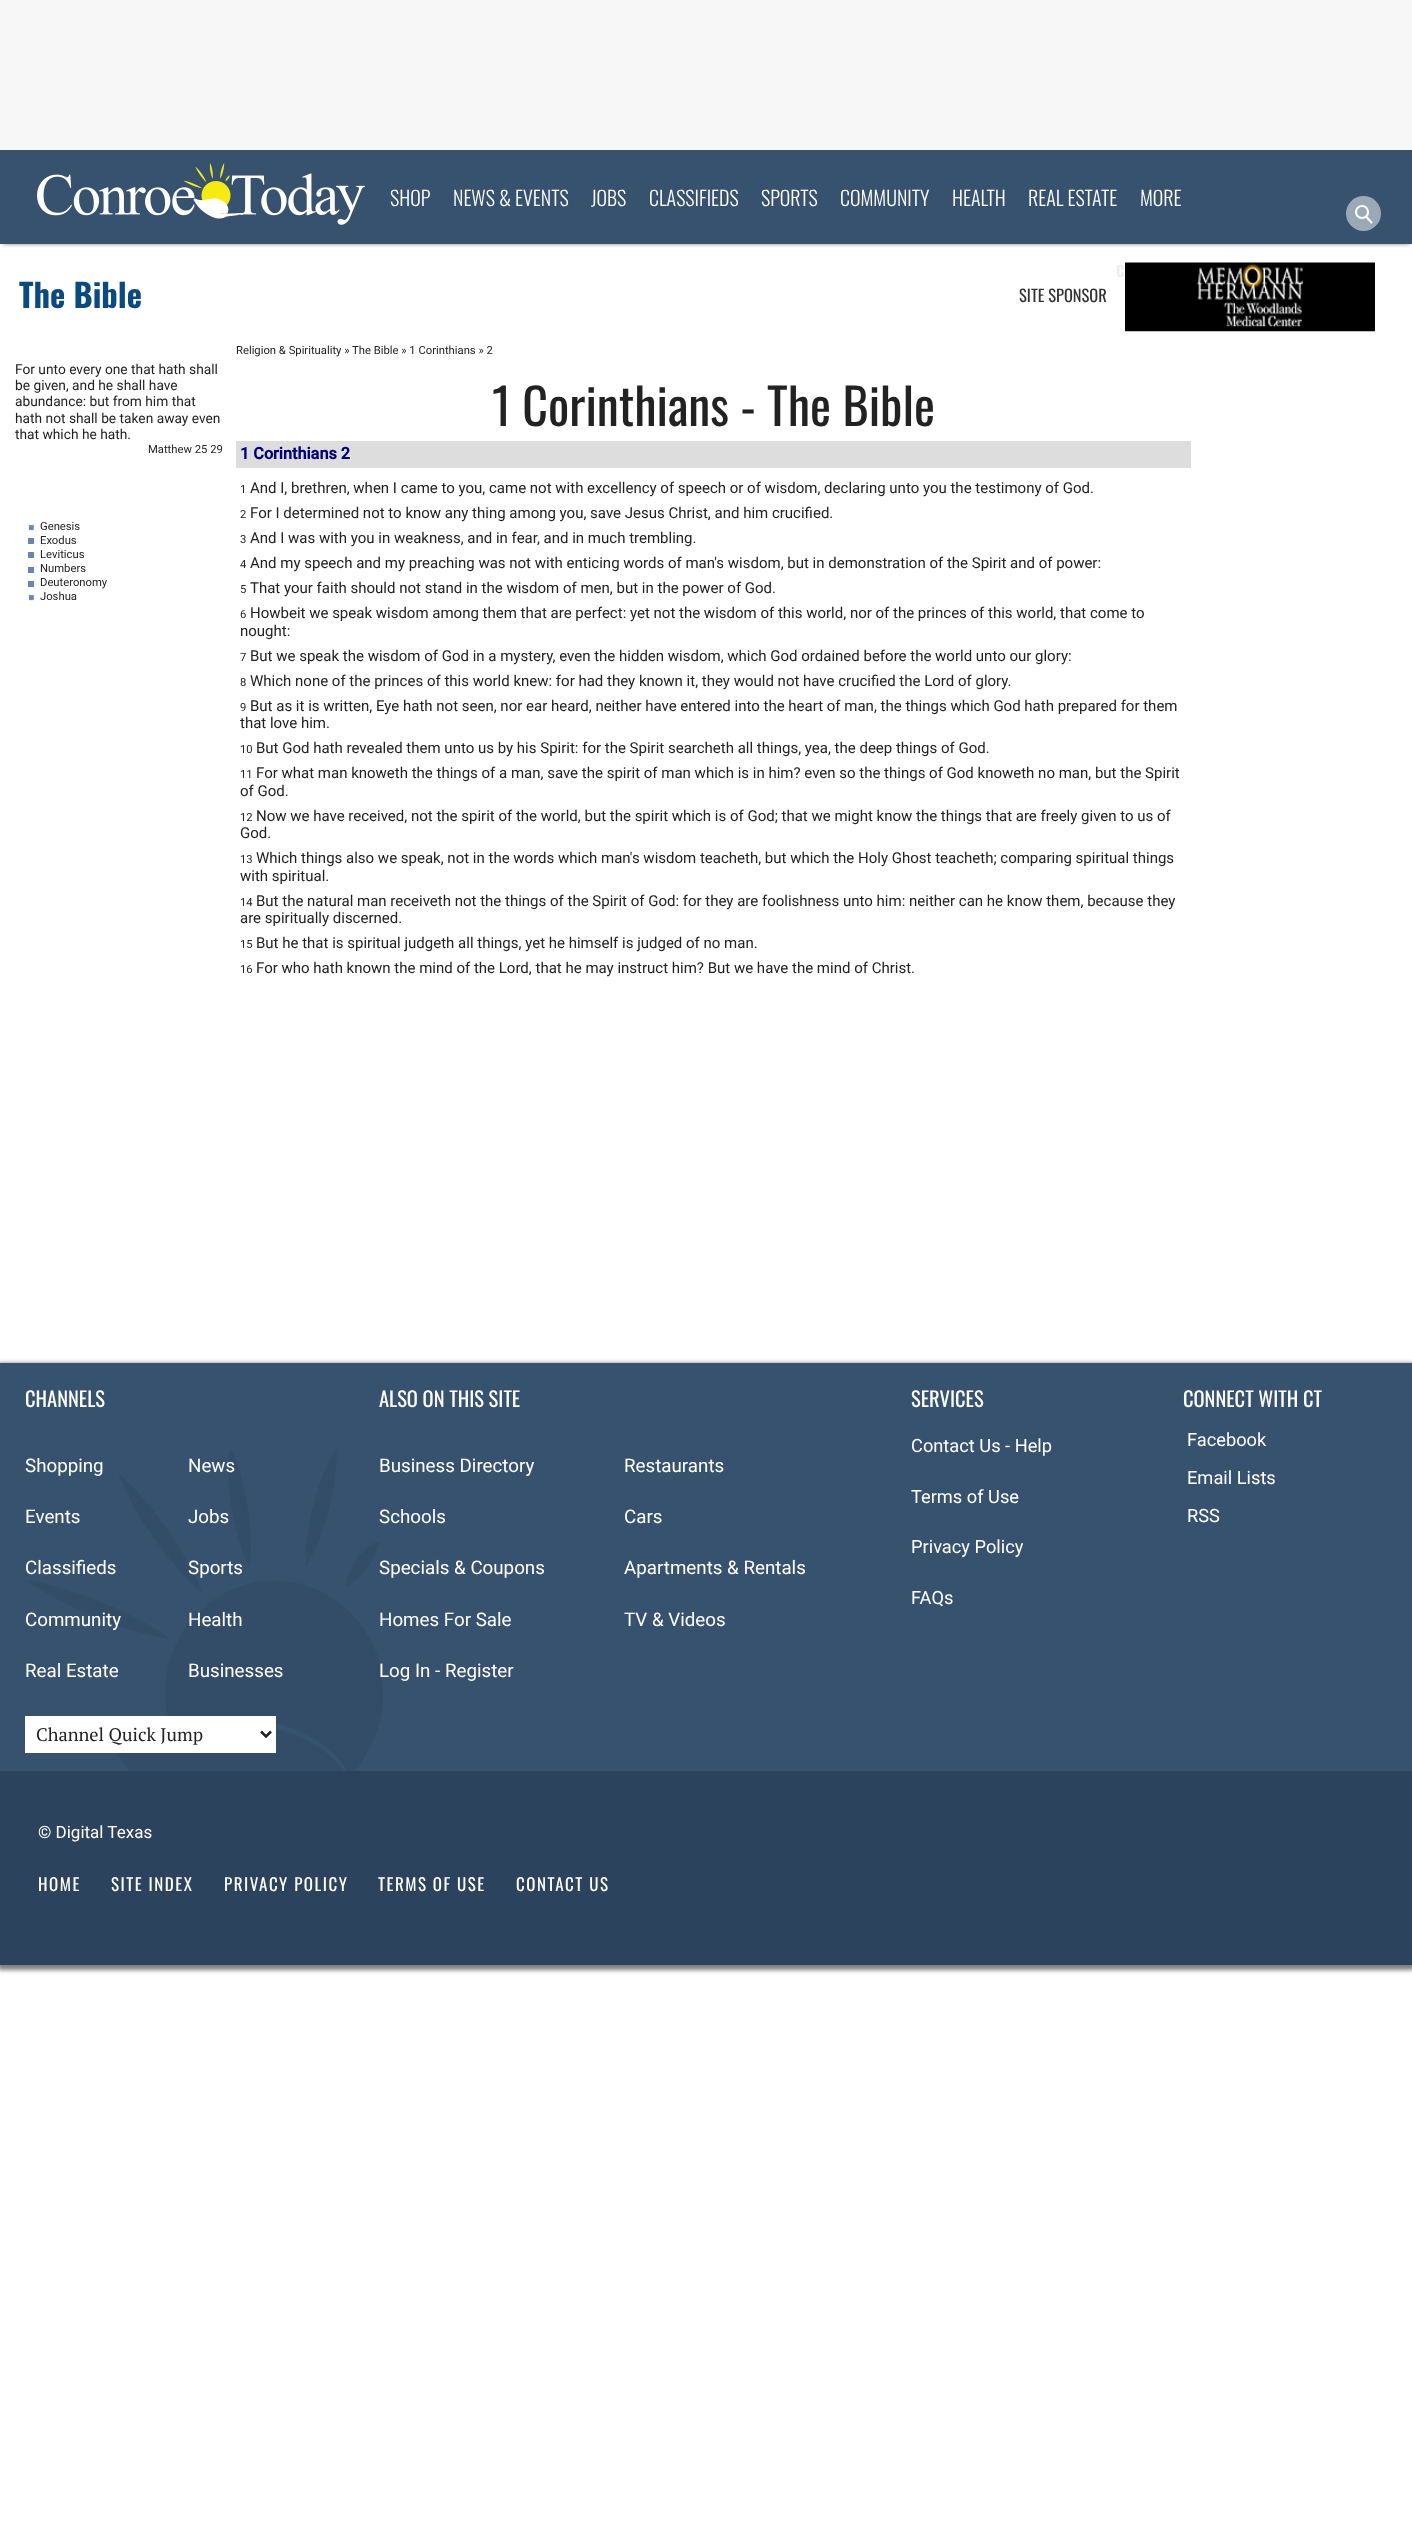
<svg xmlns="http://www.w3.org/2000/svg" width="1412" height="2526">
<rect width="100%" height="100%" fill="#fff"/>
<rect width="1412" height="150" fill="#f7f7f7"/>
<rect x="3" y="155" width="1407" height="89" fill="#00000080" filter="blur(2px)"/>
<rect y="150" width="1412" height="94" fill="#37526f"/>
<image x="37" y="163" width="328" height="62" href="media/1.png"/>
<text x="390" y="206" style="font-family:Oswald;font-size:20px;font-weight:300;fill:#fff">SHOP</text>
<text x="453" y="206" style="font-family:Oswald;font-size:20px;font-weight:300;fill:#fff">NEWS &amp; EVENTS</text>
<text x="591" y="206" style="font-family:Oswald;font-size:20px;font-weight:300;fill:#fff">JOBS</text>
<text x="649" y="206" style="font-family:Oswald;font-size:20px;font-weight:300;fill:#fff">CLASSIFIEDS</text>
<text x="761" y="206" style="font-family:Oswald;font-size:20px;font-weight:300;fill:#fff">SPORTS</text>
<text x="840" y="206" style="font-family:Oswald;font-size:20px;font-weight:300;fill:#fff">COMMUNITY</text>
<text x="952" y="206" style="font-family:Oswald;font-size:20px;font-weight:300;fill:#fff">HEALTH</text>
<text x="1028" y="206" style="font-family:Oswald;font-size:20px;font-weight:300;fill:#fff">REAL ESTATE</text>
<text x="1140" y="206" style="font-family:Oswald;font-size:20px;font-weight:300;fill:#fff">MORE</text>
<circle cx="1363.5" cy="213.5" r="17.5" fill="#9ba9b7"/>
<path d="M1371.5 222.5l-5.5-6" fill="none" stroke="#fff" stroke-width="2.2" stroke-linecap="round"/>
<circle cx="1362" cy="212" r="6" fill="none" stroke="#fff" stroke-width="2.1"/>
<text x="1116" y="277" style="font-family:Oswald;font-size:15px;font-weight:bold;letter-spacing:1px;fill:#ededed">C</text>
<text x="1019" y="302" style="font-family:Oswald;font-size:16.5px;fill:#333">SITE SPONSOR</text>
<image x="1125" y="262" width="250" height="70" href="media/2.png"/>
<text x="19" y="308" style="font-family:Oswald;font-size:32.5px;font-weight:bold;fill:#094a82">The Bible</text>
<text x="15" y="374" style="font-family:Roboto;font-size:13.75px;fill:#222">For unto every one that hath shall</text>
<text x="15" y="390" style="font-family:Roboto;font-size:13.75px;fill:#222">be given, and he shall have</text>
<text x="15" y="406" style="font-family:Roboto;font-size:13.75px;fill:#222">abundance: but from him that</text>
<text x="15" y="423" style="font-family:Roboto;font-size:13.75px;fill:#222">hath not shall be taken away even</text>
<text x="15" y="439" style="font-family:Roboto;font-size:13.75px;fill:#222">that which he hath.</text>
<text x="148" y="453" style="font-family:Roboto;font-size:11.25px;fill:#222">Matthew 25 29</text>
<image x="28" y="524" width="6" height="7" href="media/3.png"/>
<text x="40" y="530" style="font-family:Roboto;font-size:11.25px;fill:#222">Genesis</text>
<rect x="28" y="538" width="6" height="6" fill="#6984b6"/>
<text x="40" y="544" style="font-family:Roboto;font-size:11.25px;fill:#222">Exodus</text>
<rect x="28" y="552" width="6" height="6" fill="#6984b6"/>
<text x="40" y="558" style="font-family:Roboto;font-size:11.25px;fill:#222">Leviticus</text>
<rect x="28" y="567" width="6" height="6" fill="#6984b6"/>
<text x="40" y="572" style="font-family:Roboto;font-size:11.25px;fill:#222">Numbers</text>
<rect x="28" y="581" width="6" height="6" fill="#6984b6"/>
<text x="40" y="586" style="font-family:Roboto;font-size:11.25px;fill:#222">Deuteronomy</text>
<image x="28" y="594" width="6" height="7" href="media/3.png"/>
<text x="40" y="600" style="font-family:Roboto;font-size:11.25px;fill:#222">Joshua</text>
<text x="236" y="354" style="font-family:Roboto;font-size:11.25px;fill:#222">Religion &amp; Spirituality » The Bible » 1 Corinthians » 2</text>
<text x="492" y="426" style="font-family:Oswald;font-size:50px;fill:#222">1 Corinthians - The Bible</text>
<rect x="236" y="441" width="955" height="27" fill="#ddd"/>
<text x="240" y="459" style="font-family:Roboto;font-size:16.25px;font-weight:bold;fill:#000080">1 Corinthians 2</text>
<text x="240" y="493" style="font-family:Roboto;font-size:11.25px;fill:#222">1</text>
<text x="250" y="493" style="font-family:Roboto;font-size:15px;fill:#222">And I, brethren, when I came to you, came not with excellency of speech or of wisdom, declaring unto you the testimony of God.</text>
<text x="240" y="518" style="font-family:Roboto;font-size:11.25px;fill:#222">2</text>
<text x="250" y="518" style="font-family:Roboto;font-size:15px;fill:#222">For I determined not to know any thing among you, save Jesus Christ, and him crucified.</text>
<text x="240" y="543" style="font-family:Roboto;font-size:11.25px;fill:#222">3</text>
<text x="250" y="543" style="font-family:Roboto;font-size:15px;fill:#222">And I was with you in weakness, and in fear, and in much trembling.</text>
<text x="240" y="568" style="font-family:Roboto;font-size:11.25px;fill:#222">4</text>
<text x="250" y="568" style="font-family:Roboto;font-size:15px;fill:#222">And my speech and my preaching was not with enticing words of man's wisdom, but in demonstration of the Spirit and of power:</text>
<text x="240" y="593" style="font-family:Roboto;font-size:11.25px;fill:#222">5</text>
<text x="250" y="593" style="font-family:Roboto;font-size:15px;fill:#222">That your faith should not stand in the wisdom of men, but in the power of God.</text>
<text x="240" y="618" style="font-family:Roboto;font-size:11.25px;fill:#222">6</text>
<text x="250" y="618" style="font-family:Roboto;font-size:15px;fill:#222">Howbeit we speak wisdom among them that are perfect: yet not the wisdom of this world, nor of the princes of this world, that come to</text>
<text x="240" y="636" style="font-family:Roboto;font-size:15px;fill:#222">nought:</text>
<text x="240" y="661" style="font-family:Roboto;font-size:11.25px;fill:#222">7</text>
<text x="250" y="661" style="font-family:Roboto;font-size:15px;fill:#222">But we speak the wisdom of God in a mystery, even the hidden wisdom, which God ordained before the world unto our glory:</text>
<text x="240" y="686" style="font-family:Roboto;font-size:11.25px;fill:#222">8</text>
<text x="250" y="686" style="font-family:Roboto;font-size:15px;fill:#222">Which none of the princes of this world knew: for had they known it, they would not have crucified the Lord of glory.</text>
<text x="240" y="711" style="font-family:Roboto;font-size:11.25px;fill:#222">9</text>
<text x="250" y="711" style="font-family:Roboto;font-size:15px;fill:#222">But as it is written, Eye hath not seen, nor ear heard, neither have entered into the heart of man, the things which God hath prepared for them</text>
<text x="240" y="728" style="font-family:Roboto;font-size:15px;fill:#222">that love him.</text>
<text x="240" y="753" style="font-family:Roboto;font-size:11.25px;fill:#222">10</text>
<text x="256" y="753" style="font-family:Roboto;font-size:15px;fill:#222">But God hath revealed them unto us by his Spirit: for the Spirit searcheth all things, yea, the deep things of God.</text>
<text x="240" y="778" style="font-family:Roboto;font-size:11.25px;fill:#222">11</text>
<text x="256" y="778" style="font-family:Roboto;font-size:15px;fill:#222">For what man knoweth the things of a man, save the spirit of man which is in him? even so the things of God knoweth no man, but the Spirit</text>
<text x="240" y="796" style="font-family:Roboto;font-size:15px;fill:#222">of God.</text>
<text x="240" y="821" style="font-family:Roboto;font-size:11.25px;fill:#222">12</text>
<text x="256" y="821" style="font-family:Roboto;font-size:15px;fill:#222">Now we have received, not the spirit of the world, but the spirit which is of God; that we might know the things that are freely given to us of</text>
<text x="240" y="838" style="font-family:Roboto;font-size:15px;fill:#222">God.</text>
<text x="240" y="863" style="font-family:Roboto;font-size:11.25px;fill:#222">13</text>
<text x="256" y="863" style="font-family:Roboto;font-size:15px;fill:#222">Which things also we speak, not in the words which man's wisdom teacheth, but which the Holy Ghost teacheth; comparing spiritual things</text>
<text x="240" y="881" style="font-family:Roboto;font-size:15px;fill:#222">with spiritual.</text>
<text x="240" y="906" style="font-family:Roboto;font-size:11.25px;fill:#222">14</text>
<text x="256" y="906" style="font-family:Roboto;font-size:15px;fill:#222">But the natural man receiveth not the things of the Spirit of God: for they are foolishness unto him: neither can he know them, because they</text>
<text x="240" y="923" style="font-family:Roboto;font-size:15px;fill:#222">are spiritually discerned.</text>
<text x="240" y="948" style="font-family:Roboto;font-size:11.25px;fill:#222">15</text>
<text x="256" y="948" style="font-family:Roboto;font-size:15px;fill:#222">But he that is spiritual judgeth all things, yet he himself is judged of no man.</text>
<text x="240" y="973" style="font-family:Roboto;font-size:11.25px;fill:#222">16</text>
<text x="256" y="973" style="font-family:Roboto;font-size:15px;fill:#222">For who hath known the mind of the Lord, that he may instruct him? But we have the mind of Christ.</text>
<rect x="-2" y="1363" width="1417" height="607" fill="#00000080" filter="blur(2px)"/>
<rect y="1363" width="1412" height="408" fill="#37526f"/>
<text x="25" y="1407" style="font-family:Oswald;font-size:20.5px;fill:#fff">CHANNELS</text>
<image x="29" y="1449" width="354" height="322" href="media/4.png"/>
<text x="25" y="1472" style="font-family:Roboto;font-size:18.75px;fill:#fff">Shopping</text>
<text x="188" y="1472" style="font-family:Roboto;font-size:18.75px;fill:#fff">News</text>
<text x="25" y="1523" style="font-family:Roboto;font-size:18.75px;fill:#fff">Events</text>
<text x="188" y="1523" style="font-family:Roboto;font-size:18.75px;fill:#fff">Jobs</text>
<text x="25" y="1574" style="font-family:Roboto;font-size:18.75px;fill:#fff">Classifieds</text>
<text x="188" y="1574" style="font-family:Roboto;font-size:18.75px;fill:#fff">Sports</text>
<text x="25" y="1626" style="font-family:Roboto;font-size:18.75px;fill:#fff">Community</text>
<text x="188" y="1626" style="font-family:Roboto;font-size:18.75px;fill:#fff">Health</text>
<text x="25" y="1677" style="font-family:Roboto;font-size:18.75px;fill:#fff">Real Estate</text>
<text x="188" y="1677" style="font-family:Roboto;font-size:18.75px;fill:#fff">Businesses</text>
<rect x="25" y="1716" width="251" height="37" fill="#fff"/>
<path d="M261 1731.5l5 5l5-5" fill="none" stroke="#222" stroke-width="2.5"/>
<text x="36" y="1741" style="font-family:PT Serif;font-size:18.25px;fill:#222">Channel Quick Jump</text>
<text x="379" y="1407" style="font-family:Oswald;font-size:20.5px;fill:#fff">ALSO ON THIS SITE</text>
<text x="379" y="1472" style="font-family:Roboto;font-size:18.75px;fill:#fff">Business Directory</text>
<text x="624" y="1472" style="font-family:Roboto;font-size:18.75px;fill:#fff">Restaurants</text>
<text x="379" y="1523" style="font-family:Roboto;font-size:18.75px;fill:#fff">Schools</text>
<text x="624" y="1523" style="font-family:Roboto;font-size:18.75px;fill:#fff">Cars</text>
<text x="379" y="1574" style="font-family:Roboto;font-size:18.75px;fill:#fff">Specials &amp; Coupons</text>
<text x="624" y="1574" style="font-family:Roboto;font-size:18.75px;fill:#fff">Apartments &amp; Rentals</text>
<text x="379" y="1626" style="font-family:Roboto;font-size:18.75px;fill:#fff">Homes For Sale</text>
<text x="624" y="1626" style="font-family:Roboto;font-size:18.75px;fill:#fff">TV &amp; Videos</text>
<text x="379" y="1677" style="font-family:Roboto;font-size:18.75px;fill:#fff">Log In - Register</text>
<text x="911" y="1407" style="font-family:Oswald;font-size:20.5px;fill:#fff">SERVICES</text>
<text x="911" y="1452" style="font-family:Roboto;font-size:18.25px;fill:#fff">Contact Us - Help</text>
<text x="911" y="1503" style="font-family:Roboto;font-size:18.25px;fill:#fff">Terms of Use</text>
<text x="911" y="1553" style="font-family:Roboto;font-size:18.25px;fill:#fff">Privacy Policy</text>
<text x="911" y="1604" style="font-family:Roboto;font-size:18.25px;fill:#fff">FAQs</text>
<text x="1183" y="1407" style="font-family:Oswald;font-size:20.5px;fill:#fff">CONNECT WITH CT</text>
<text x="1187" y="1446" style="font-family:Roboto;font-size:18.25px;fill:#fff">Facebook</text>
<text x="1187" y="1484" style="font-family:Roboto;font-size:18.25px;fill:#fff">Email Lists</text>
<text x="1187" y="1522" style="font-family:Roboto;font-size:18.25px;fill:#fff">RSS</text>
<rect y="1771" width="1412" height="194" fill="#2b435c"/>
<text x="38" y="1838" style="font-family:Roboto;font-size:17px;fill:#fff">© Digital Texas</text>
<text x="38" y="1891" style="font-family:Oswald;font-size:17px;letter-spacing:1.5px;fill:#fff">HOME</text>
<text x="111" y="1891" style="font-family:Oswald;font-size:17px;letter-spacing:1.5px;fill:#fff">SITE INDEX</text>
<text x="224" y="1891" style="font-family:Oswald;font-size:17px;letter-spacing:1.5px;fill:#fff">PRIVACY POLICY</text>
<text x="378" y="1891" style="font-family:Oswald;font-size:17px;letter-spacing:1.5px;fill:#fff">TERMS OF USE</text>
<text x="516" y="1891" style="font-family:Oswald;font-size:17px;letter-spacing:1.5px;fill:#fff">CONTACT US</text>
</svg>
